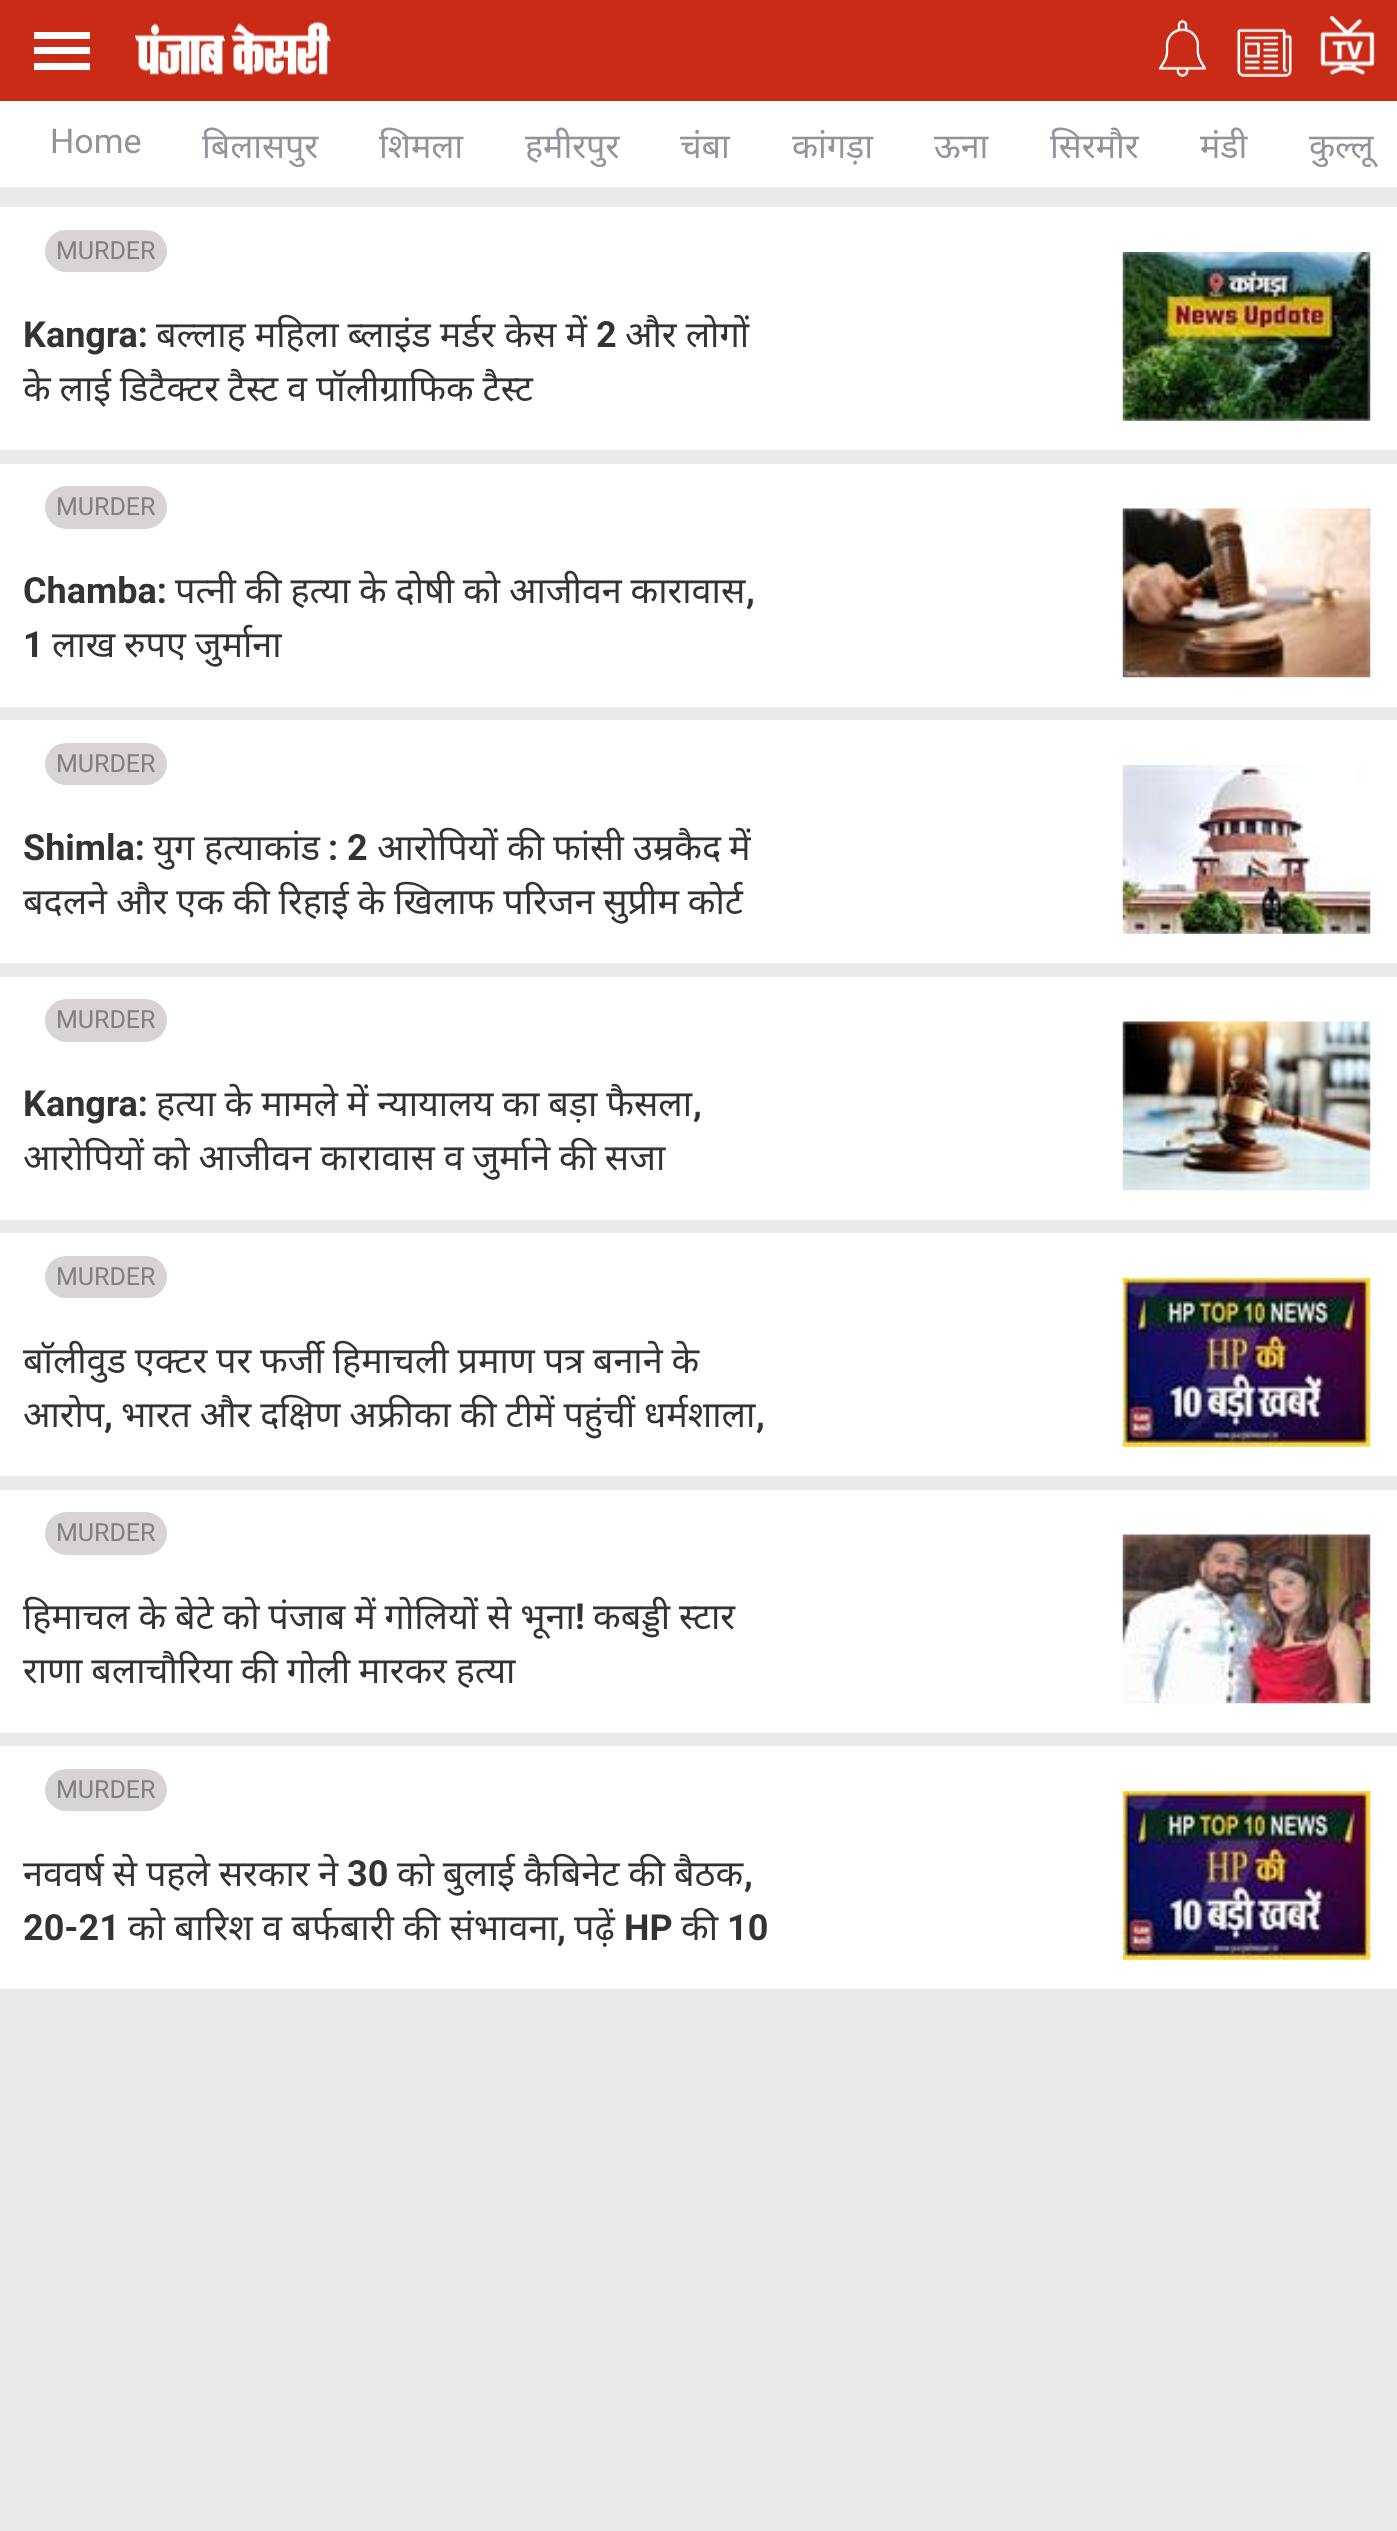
<svg xmlns="http://www.w3.org/2000/svg" width="1397" height="2531">
<defs>
<clipPath id="clip1"><rect x="23" y="308" width="769" height="106"/></clipPath>
<clipPath id="clip2"><rect x="23" y="821" width="769" height="106"/></clipPath>
<clipPath id="clip3"><rect x="23" y="1334" width="769" height="106"/></clipPath>
<clipPath id="clip4"><rect x="23" y="1591" width="769" height="106"/></clipPath>
<clipPath id="clip5"><rect x="23" y="1847" width="769" height="106"/></clipPath>
</defs>
<rect width="100%" height="100%" fill="#e9eaec"/>
<rect width="1397" height="101" fill="#c92b17"/>
<rect x="34" y="32" width="56" height="7" fill="#fff"/>
<rect x="34" y="47" width="56" height="7" fill="#fff"/>
<rect x="34" y="63" width="56" height="7" fill="#fff"/>
<image x="135" y="21" width="196" height="54" href="media/1.png"/>
<image x="1158" y="19" width="48" height="58" href="media/2.png"/>
<image x="1237" y="28" width="55" height="49" href="media/3.png"/>
<image x="1320" y="16" width="55" height="59" href="media/4.png"/>
<rect y="101" width="1397" height="86" fill="#fff"/>
<text x="50" y="153" style="font-family:Roboto;font-size:34px;fill:#96929d">Home</text>
<text x="202" y="158" style="font-family:Noto Sans;font-size:34px;fill:#96929d">बिलासपुर</text>
<text x="379" y="158" style="font-family:Noto Sans;font-size:34px;fill:#96929d">शिमला</text>
<text x="525" y="158" style="font-family:Noto Sans;font-size:34px;fill:#96929d">हमीरपुर</text>
<text x="680" y="158" style="font-family:Noto Sans;font-size:34px;fill:#96929d">चंबा</text>
<text x="792" y="158" style="font-family:Noto Sans;font-size:34px;fill:#96929d">कांगड़ा</text>
<text x="934" y="158" style="font-family:Noto Sans;font-size:34px;fill:#96929d">ऊना</text>
<text x="1050" y="158" style="font-family:Noto Sans;font-size:34px;fill:#96929d">सिरमौर</text>
<text x="1200" y="158" style="font-family:Noto Sans;font-size:34px;fill:#96929d">मंडी</text>
<text x="1309" y="158" style="font-family:Noto Sans;font-size:34px;fill:#96929d">कुल्लू</text>
<rect y="207" width="1397" height="243" fill="#fff"/>
<rect x="45" y="230" width="122" height="42" rx="21" fill="#d8d4d4"/>
<text x="56" y="259" style="font-family:Roboto;font-size:25px;fill:#808080">MURDER</text>
<text x="23" y="347" style="font-family:Roboto;font-size:36px;font-weight:bold;fill:#333">Kangra:</text>
<text x="156" y="347" word-spacing="-0.25" style="font-family:Noto Sans;font-size:36px;fill:#333">बल्लाह महिला ब्लाइंड मर्डर केस में</text>
<text x="596" y="347" style="font-family:Roboto;font-size:36px;font-weight:bold;fill:#333">2</text>
<text x="625" y="347" word-spacing="-0.25" style="font-family:Noto Sans;font-size:36px;fill:#333">और लोगों</text>
<g clip-path="url(#clip1)">
<text x="23" y="401" word-spacing="-0.5" style="font-family:Noto Sans;font-size:36px;fill:#333">के लाई डिटैक्टर टैस्ट व पॉलीग्राफिक टैस्ट</text>
</g>
<image x="1122" y="252" width="249" height="169" href="media/5.png"/>
<rect y="464" width="1397" height="243" fill="#fff"/>
<rect x="45" y="486" width="122" height="43" rx="21.5" fill="#d8d4d4"/>
<text x="56" y="515" style="font-family:Roboto;font-size:25px;fill:#808080">MURDER</text>
<text x="23" y="603" style="font-family:Roboto;font-size:36px;font-weight:bold;fill:#333">Chamba:</text>
<text x="175" y="603" word-spacing="-0.5" style="font-family:Noto Sans;font-size:36px;fill:#333">पत्नी की हत्या के दोषी को आजीवन कारावास</text>
<text x="746" y="603" style="font-family:Roboto;font-size:36px;font-weight:bold;fill:#333">,</text>
<text x="23" y="657" style="font-family:Roboto;font-size:36px;font-weight:bold;fill:#333">1</text>
<text x="52" y="657" word-spacing="-0.5" style="font-family:Noto Sans;font-size:36px;fill:#333">लाख रुपए जुर्माना</text>
<image x="1122" y="508" width="249" height="170" href="media/6.png"/>
<rect y="720" width="1397" height="243" fill="#fff"/>
<rect x="45" y="743" width="122" height="42" rx="21" fill="#d8d4d4"/>
<text x="56" y="772" style="font-family:Roboto;font-size:25px;fill:#808080">MURDER</text>
<text x="23" y="860" style="font-family:Roboto;font-size:36px;font-weight:bold;fill:#333">Shimla:</text>
<text x="153" y="860" style="font-family:Noto Sans;font-size:36px;fill:#333">युग</text>
<text x="204" y="860" style="font-family:Noto Sans;font-size:36px;fill:#333">हत्याकांड</text>
<text x="328" y="860" style="font-family:Roboto;font-size:36px;font-weight:bold;fill:#333">: 2</text>
<text x="377" y="860" style="font-family:Noto Sans;font-size:36px;fill:#333">आरोपियों</text>
<text x="507" y="860" style="font-family:Noto Sans;font-size:36px;fill:#333">की</text>
<text x="553" y="860" style="font-family:Noto Sans;font-size:36px;fill:#333">फांसी</text>
<text x="633" y="860" style="font-family:Noto Sans;font-size:36px;fill:#333">उम्रकैद</text>
<text x="729" y="860" style="font-family:Noto Sans;font-size:36px;fill:#333">में</text>
<g clip-path="url(#clip2)">
<text x="23" y="914" word-spacing="-0.5" style="font-family:Noto Sans;font-size:36px;fill:#333">बदलने और एक की रिहाई के खिलाफ परिजन सुप्रीम कोर्ट</text>
</g>
<image x="1122" y="765" width="249" height="169" href="media/7.png"/>
<rect y="977" width="1397" height="243" fill="#fff"/>
<rect x="45" y="999" width="122" height="43" rx="21.5" fill="#d8d4d4"/>
<text x="56" y="1028" style="font-family:Roboto;font-size:25px;fill:#808080">MURDER</text>
<text x="23" y="1116" style="font-family:Roboto;font-size:36px;font-weight:bold;fill:#333">Kangra:</text>
<text x="156" y="1116" word-spacing="-0.5" style="font-family:Noto Sans;font-size:36px;fill:#333">हत्या के मामले में न्यायालय का बड़ा फैसला</text>
<text x="693" y="1116" style="font-family:Roboto;font-size:36px;font-weight:bold;fill:#333">,</text>
<text x="23" y="1170" word-spacing="-0.5" style="font-family:Noto Sans;font-size:36px;fill:#333">आरोपियों को आजीवन कारावास व जुर्माने की सजा</text>
<image x="1122" y="1021" width="249" height="170" href="media/8.png"/>
<rect y="1233" width="1397" height="243" fill="#fff"/>
<rect x="45" y="1256" width="122" height="42" rx="21" fill="#d8d4d4"/>
<text x="56" y="1285" style="font-family:Roboto;font-size:25px;fill:#808080">MURDER</text>
<g clip-path="url(#clip3)">
<text x="23" y="1373" word-spacing="-0.5" style="font-family:Noto Sans;font-size:36px;fill:#333">बाॅलीवुड एक्टर पर फर्जी हिमाचली प्रमाण पत्र बनाने के</text>
</g>
<text x="23" y="1427" style="font-family:Noto Sans;font-size:36px;fill:#333">आरोप</text>
<text x="104" y="1427" style="font-family:Roboto;font-size:36px;font-weight:bold;fill:#333">,</text>
<text x="121" y="1427" word-spacing="-0.5" style="font-family:Noto Sans;font-size:36px;fill:#333">भारत और दक्षिण अफ्रीका की टीमें पहुंचीं धर्मशाला</text>
<text x="756" y="1427" style="font-family:Roboto;font-size:36px;font-weight:bold;fill:#333">,</text>
<image x="1122" y="1278" width="249" height="169" href="media/9.png"/>
<rect y="1490" width="1397" height="243" fill="#fff"/>
<rect x="45" y="1512" width="122" height="43" rx="21.5" fill="#d8d4d4"/>
<text x="56" y="1541" style="font-family:Roboto;font-size:25px;fill:#808080">MURDER</text>
<g clip-path="url(#clip4)">
<text x="23" y="1629" word-spacing="-0.5" style="font-family:Noto Sans;font-size:36px;fill:#333">हिमाचल के बेटे को पंजाब में गोलियों से भूना</text>
</g>
<text x="575" y="1629" style="font-family:Roboto;font-size:36px;font-weight:bold;fill:#333">!</text>
<text x="593" y="1629" word-spacing="-0.5" style="font-family:Noto Sans;font-size:36px;fill:#333">कबड्डी स्टार</text>
<g clip-path="url(#clip4)">
<text x="23" y="1683" word-spacing="-0.5" style="font-family:Noto Sans;font-size:36px;fill:#333">राणा बलाचौरिया की गोली मारकर हत्या</text>
</g>
<image x="1122" y="1534" width="249" height="170" href="media/10.png"/>
<rect y="1746" width="1397" height="243" fill="#fff"/>
<rect x="45" y="1769" width="122" height="42" rx="21" fill="#d8d4d4"/>
<text x="56" y="1798" style="font-family:Roboto;font-size:25px;fill:#808080">MURDER</text>
<g clip-path="url(#clip5)">
<text x="23" y="1886" word-spacing="-0.5" style="font-family:Noto Sans;font-size:36px;fill:#333">नववर्ष से पहले सरकार ने</text>
</g>
<text x="347" y="1886" style="font-family:Roboto;font-size:36px;font-weight:bold;fill:#333">30</text>
<text x="397" y="1886" word-spacing="-0.5" style="font-family:Noto Sans;font-size:36px;fill:#333">को बुलाई कैबिनेट की बैठक</text>
<text x="744" y="1886" style="font-family:Roboto;font-size:36px;font-weight:bold;fill:#333">,</text>
<text x="23" y="1940" style="font-family:Roboto;font-size:36px;font-weight:bold;fill:#333">20-21</text>
<text x="128" y="1940" style="font-family:Noto Sans;font-size:36px;fill:#333">को बारिश व बर्फबारी की संभावना</text>
<text x="557" y="1940" style="font-family:Roboto;font-size:36px;font-weight:bold;fill:#333">,</text>
<text x="574" y="1940" style="font-family:Noto Sans;font-size:36px;fill:#333">पढ़ें</text>
<text x="624" y="1940" style="font-family:Roboto;font-size:36px;font-weight:bold;fill:#333">HP</text>
<text x="681" y="1940" style="font-family:Noto Sans;font-size:36px;fill:#333">की</text>
<text x="727" y="1940" style="font-family:Roboto;font-size:36px;font-weight:bold;fill:#333">10</text>
<image x="1122" y="1791" width="249" height="169" href="media/11.png"/>
</svg>
